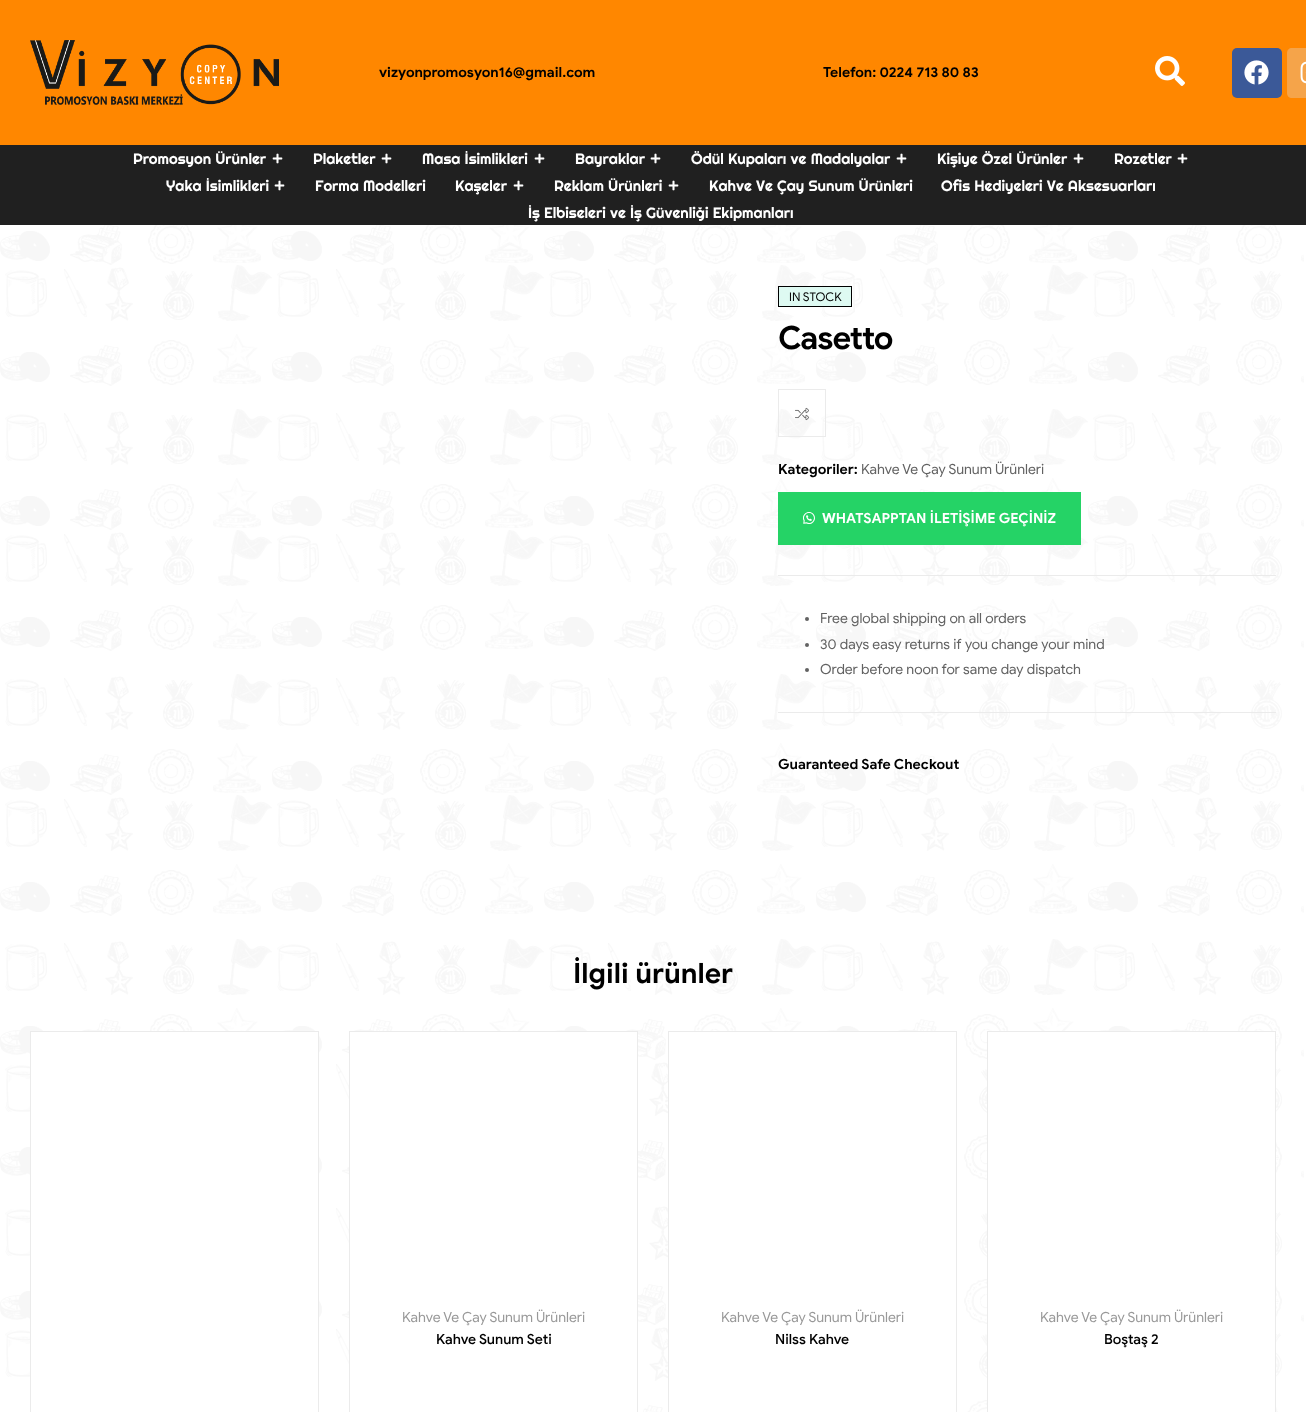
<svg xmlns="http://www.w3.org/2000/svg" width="1306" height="1412">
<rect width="100%" height="100%" fill="#fff"/>
<image x="0" y="225" width="1304" height="1187" href="media/1.png"/>
<rect width="1306" height="145" fill="#ff8700"/>
<image x="30" y="40" width="249" height="65" href="media/2.png"/>
<text x="379" y="77" style="font-family:Google Sans;font-size:14px;font-weight:bold;fill:#000">vizyonpromosyon16@gmail.com</text>
<text x="823" y="77" style="font-family:Google Sans;font-size:14px;font-weight:bold;fill:#000">Telefon: 0224 713 80 83</text>
<image x="1155" y="56" width="30" height="30" href="media/3.png"/>
<rect x="1232" y="48" width="50" height="50" rx="5" fill="#3b5998"/>
<image x="1244" y="60" width="25" height="25" href="media/4.png"/>
<path d="M1292 48h14v50h-14c-3 0-5-2-5-5v-40c0-3 2-5 5-5z" fill="#f5a44a"/>
<image x="1300" y="61" width="6" height="23" href="media/5.png"/>
<rect y="145" width="1306" height="80" fill="#202020"/>
<text x="133" y="164" style="font-family:Righteous;font-size:15px;fill:#fff">Promosyon Ürünler</text>
<image x="272" y="153" width="11" height="11" href="media/6.png"/>
<text x="313" y="164" style="font-family:Righteous;font-size:15px;fill:#fff">Plaketler</text>
<image x="381" y="153" width="11" height="11" href="media/6.png"/>
<text x="422" y="164" style="font-family:Righteous;font-size:15px;fill:#fff">Masa İsimlikleri</text>
<image x="534" y="153" width="11" height="11" href="media/6.png"/>
<text x="575" y="164" style="font-family:Righteous;font-size:15px;fill:#fff">Bayraklar</text>
<image x="650" y="153" width="11" height="11" href="media/6.png"/>
<text x="691" y="164" style="font-family:Righteous;font-size:15px;fill:#fff">Ödül Kupaları ve Madalyalar</text>
<image x="896" y="153" width="11" height="11" href="media/6.png"/>
<text x="937" y="164" style="font-family:Righteous;font-size:15px;fill:#fff">Kişiye Özel Ürünler</text>
<image x="1073" y="153" width="11" height="11" href="media/6.png"/>
<text x="1114" y="164" style="font-family:Righteous;font-size:15px;fill:#fff">Rozetler</text>
<image x="1177" y="153" width="11" height="11" href="media/6.png"/>
<text x="166" y="191" style="font-family:Righteous;font-size:15px;fill:#fff">Yaka İsimlikleri</text>
<image x="274" y="180" width="11" height="11" href="media/6.png"/>
<text x="315" y="191" style="font-family:Righteous;font-size:15px;fill:#fff">Forma Modelleri</text>
<text x="455" y="191" style="font-family:Righteous;font-size:15px;fill:#fff">Kaşeler</text>
<image x="513" y="180" width="11" height="11" href="media/6.png"/>
<text x="554" y="191" style="font-family:Righteous;font-size:15px;fill:#fff">Reklam Ürünleri</text>
<image x="668" y="180" width="11" height="11" href="media/6.png"/>
<text x="709" y="191" style="font-family:Righteous;font-size:15px;fill:#fff">Kahve Ve Çay Sunum Ürünleri</text>
<text x="941" y="191" style="font-family:Righteous;font-size:15px;fill:#fff">Ofis Hediyeleri Ve Aksesuarları</text>
<text x="528" y="218" style="font-family:Righteous;font-size:15px;fill:#fff">İş Elbiseleri ve İş Güvenliği Ekipmanları</text>
<rect x="778.5" y="286.5" width="73" height="20" fill="#defaf2" stroke="#000"/>
<text x="789" y="301" style="font-family:Google Sans;font-size:12px;fill:#000">IN STOCK</text>
<text x="778" y="349" style="font-family:Google Sans;font-size:32px;font-weight:bold;letter-spacing:-1px;fill:#000">Casetto</text>
<rect x="778.5" y="389.5" width="47" height="47" fill="none" stroke="#ebebeb"/>
<image x="795" y="407" width="14" height="14" href="media/7.png"/>
<text x="778" y="474" style="font-family:Google Sans;font-size:14px;font-weight:bold;fill:#000">Kategoriler:</text>
<text x="861" y="474" style="font-family:Google Sans;font-size:14px;fill:#626262">Kahve Ve Çay Sunum Ürünleri</text>
<rect x="778" y="492" width="303" height="53" fill="#25d366"/>
<image x="803" y="512" width="12" height="12" href="media/8.png"/>
<text x="822" y="523" style="font-family:Google Sans;font-size:14px;font-weight:bold;fill:#fff">WHATSAPPTAN İLETİŞİME GEÇİNİZ</text>
<rect x="778" y="575" width="498" height="1" fill="#ebebeb"/>
<circle cx="807" cy="619" r="2" fill="#626262"/>
<text x="820" y="623" style="font-family:Google Sans;font-size:14px;fill:#626262">Free global shipping on all orders</text>
<circle cx="807" cy="645" r="2" fill="#626262"/>
<text x="820" y="649" style="font-family:Google Sans;font-size:14px;fill:#626262">30 days easy returns if you change your mind</text>
<circle cx="807" cy="670" r="2" fill="#626262"/>
<text x="820" y="674" style="font-family:Google Sans;font-size:14px;fill:#626262">Order before noon for same day dispatch</text>
<rect x="778" y="712" width="498" height="1" fill="#ebebeb"/>
<text x="778" y="769" style="font-family:Google Sans;font-size:14px;font-weight:bold;fill:#000">Guaranteed Safe Checkout</text>
<text x="573" y="983" style="font-family:Google Sans;font-size:28px;font-weight:bold;fill:#000">İlgili ürünler</text>
<rect x="30.5" y="1031.5" width="288" height="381" fill="#fff" stroke="#ebebeb"/>
<rect x="349.5" y="1031.5" width="288" height="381" fill="#fff" stroke="#ebebeb"/>
<text x="402" y="1322" style="font-family:Google Sans;font-size:14px;fill:#999">Kahve Ve Çay Sunum Ürünleri</text>
<text x="436" y="1344" style="font-family:Google Sans;font-size:14px;font-weight:500;fill:#000">Kahve Sunum Seti</text>
<rect x="669" y="1032" width="280" height="380" fill="#fff"/>
<rect x="668.5" y="1031.5" width="288" height="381" fill="none" stroke="#ebebeb"/>
<text x="721" y="1322" style="font-family:Google Sans;font-size:14px;fill:#999">Kahve Ve Çay Sunum Ürünleri</text>
<text x="775" y="1344" style="font-family:Google Sans;font-size:14px;font-weight:500;fill:#000">Nilss Kahve</text>
<rect x="987.5" y="1031.5" width="288" height="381" fill="#fff" stroke="#ebebeb"/>
<text x="1040" y="1322" style="font-family:Google Sans;font-size:14px;fill:#999">Kahve Ve Çay Sunum Ürünleri</text>
<text x="1104" y="1344" style="font-family:Google Sans;font-size:14px;font-weight:500;fill:#000">Boştaş 2</text>
</svg>
